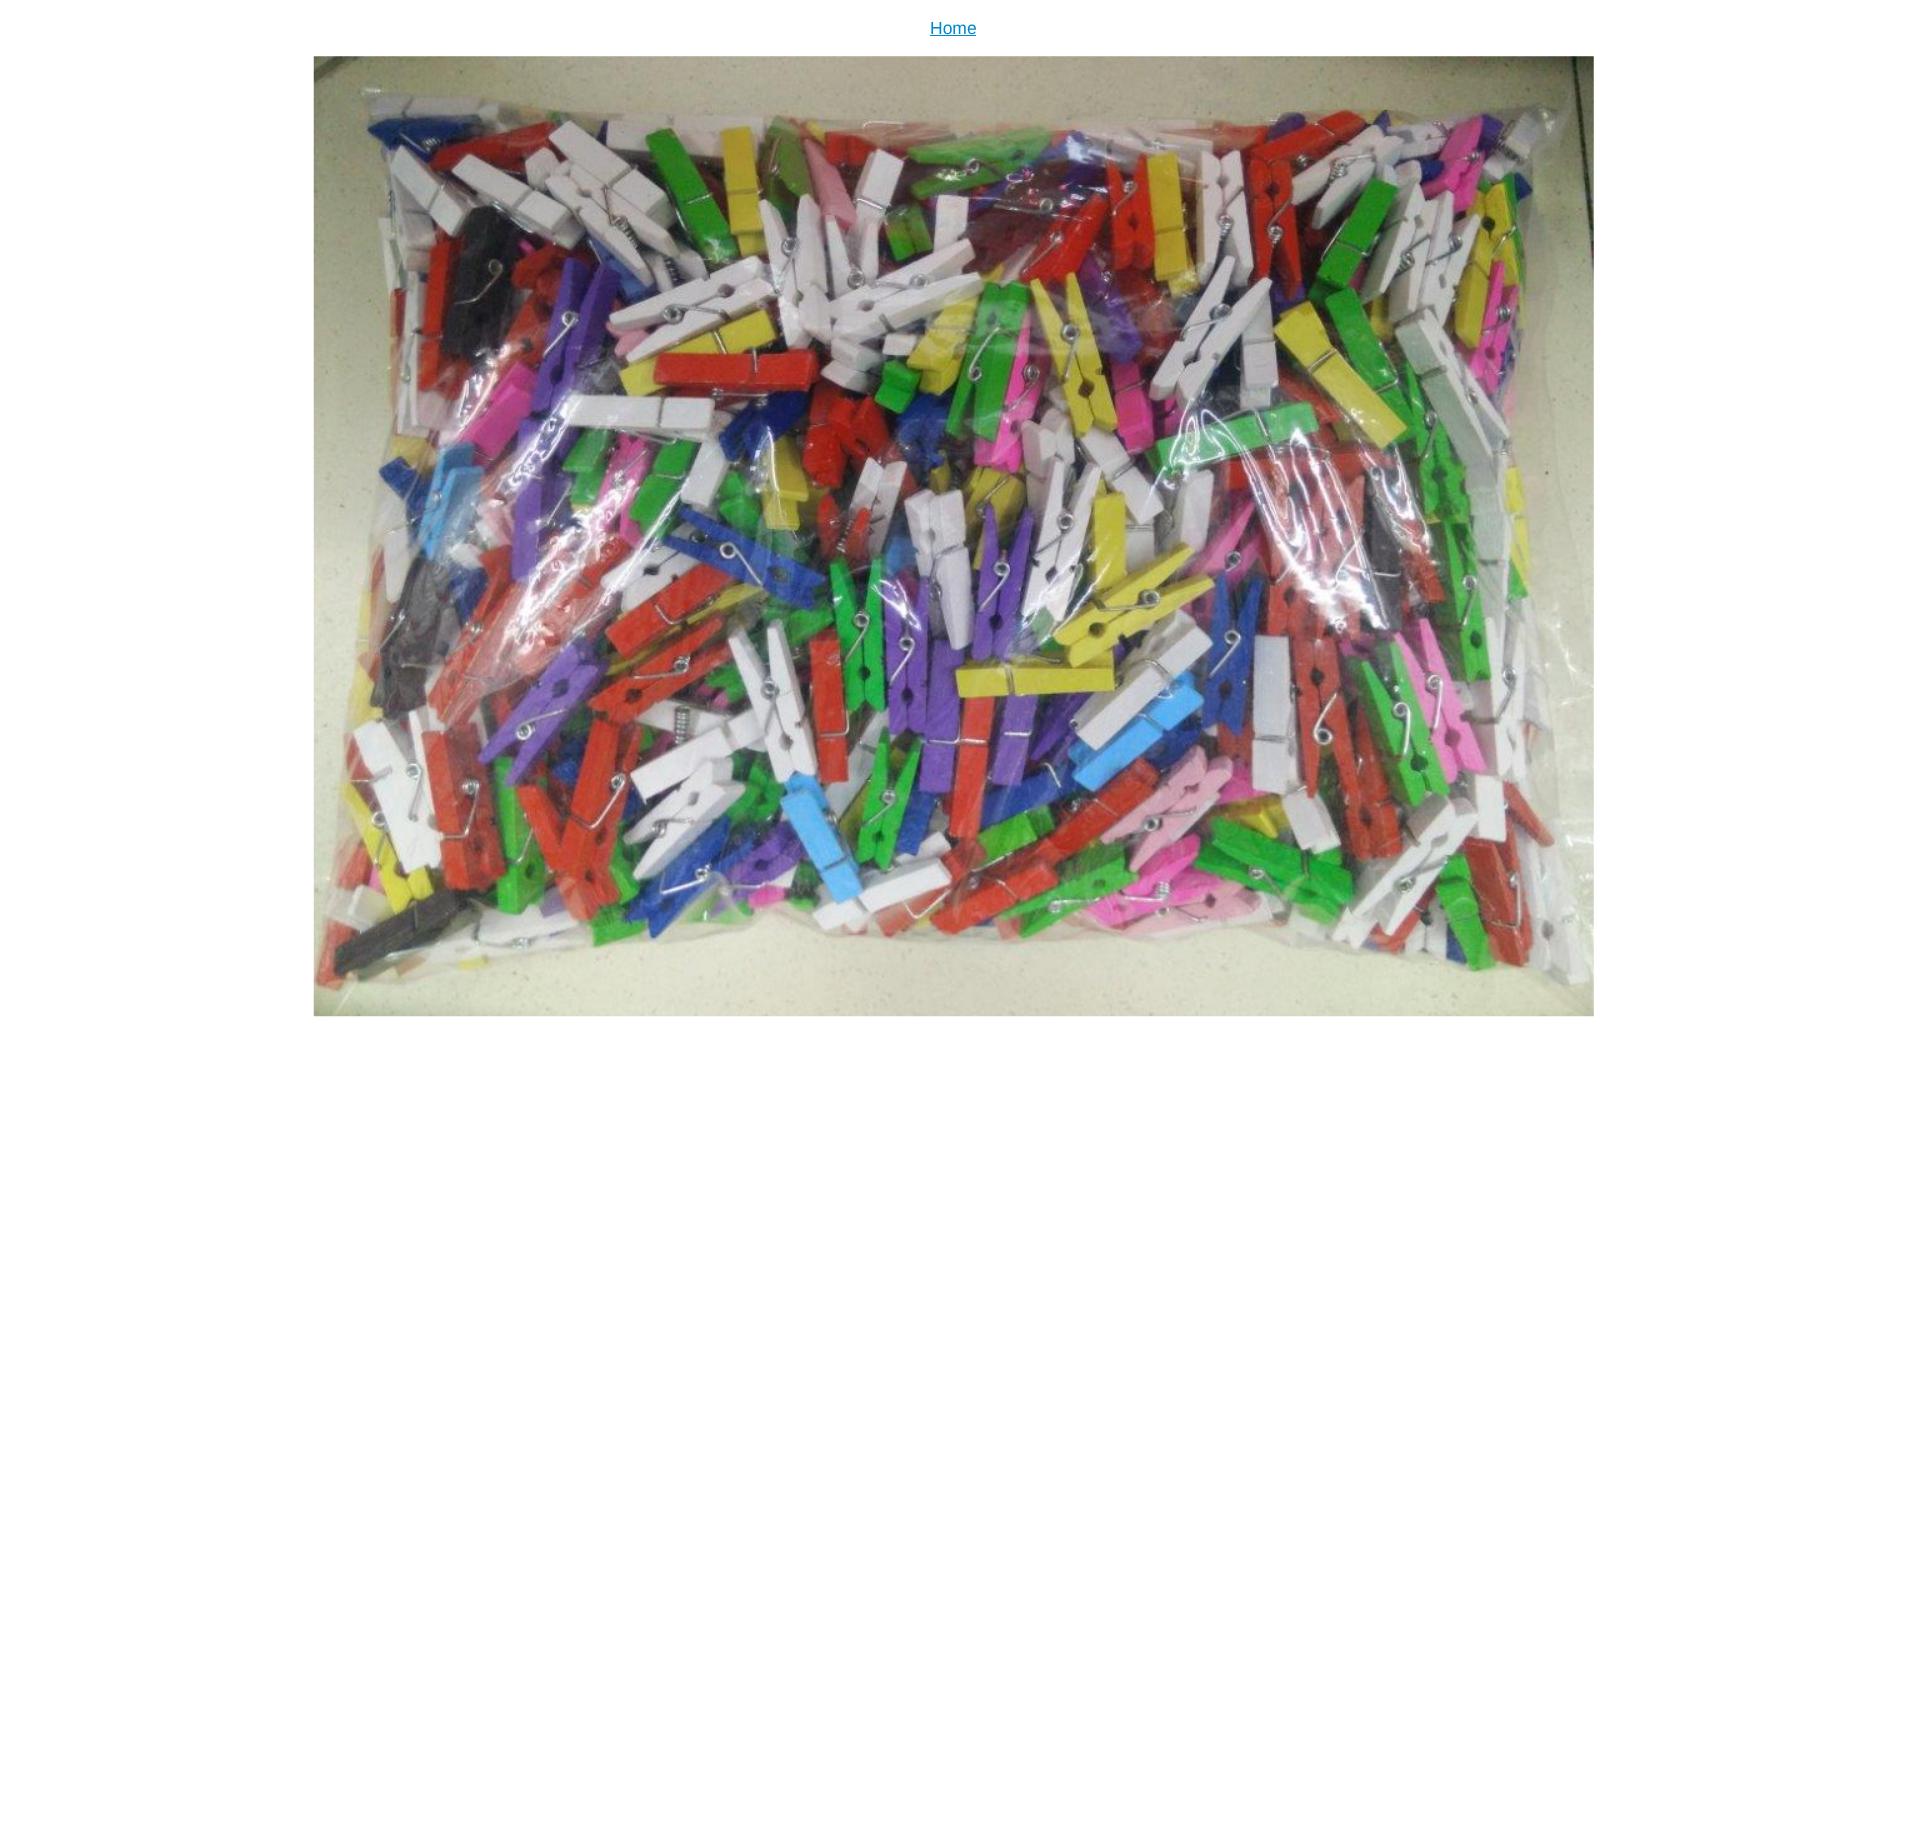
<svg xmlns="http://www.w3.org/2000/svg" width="1906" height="1824">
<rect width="100%" height="100%" fill="#fff"/>
<text x="930" y="34" style="font-family:Liberation Sans;font-size:17.5px;fill:#08c">Home</text>
<rect x="930" y="35" width="46" height="1" fill="#08c"/>
<image x="313" y="56" width="1281" height="961" href="media/1.png"/>
</svg>
